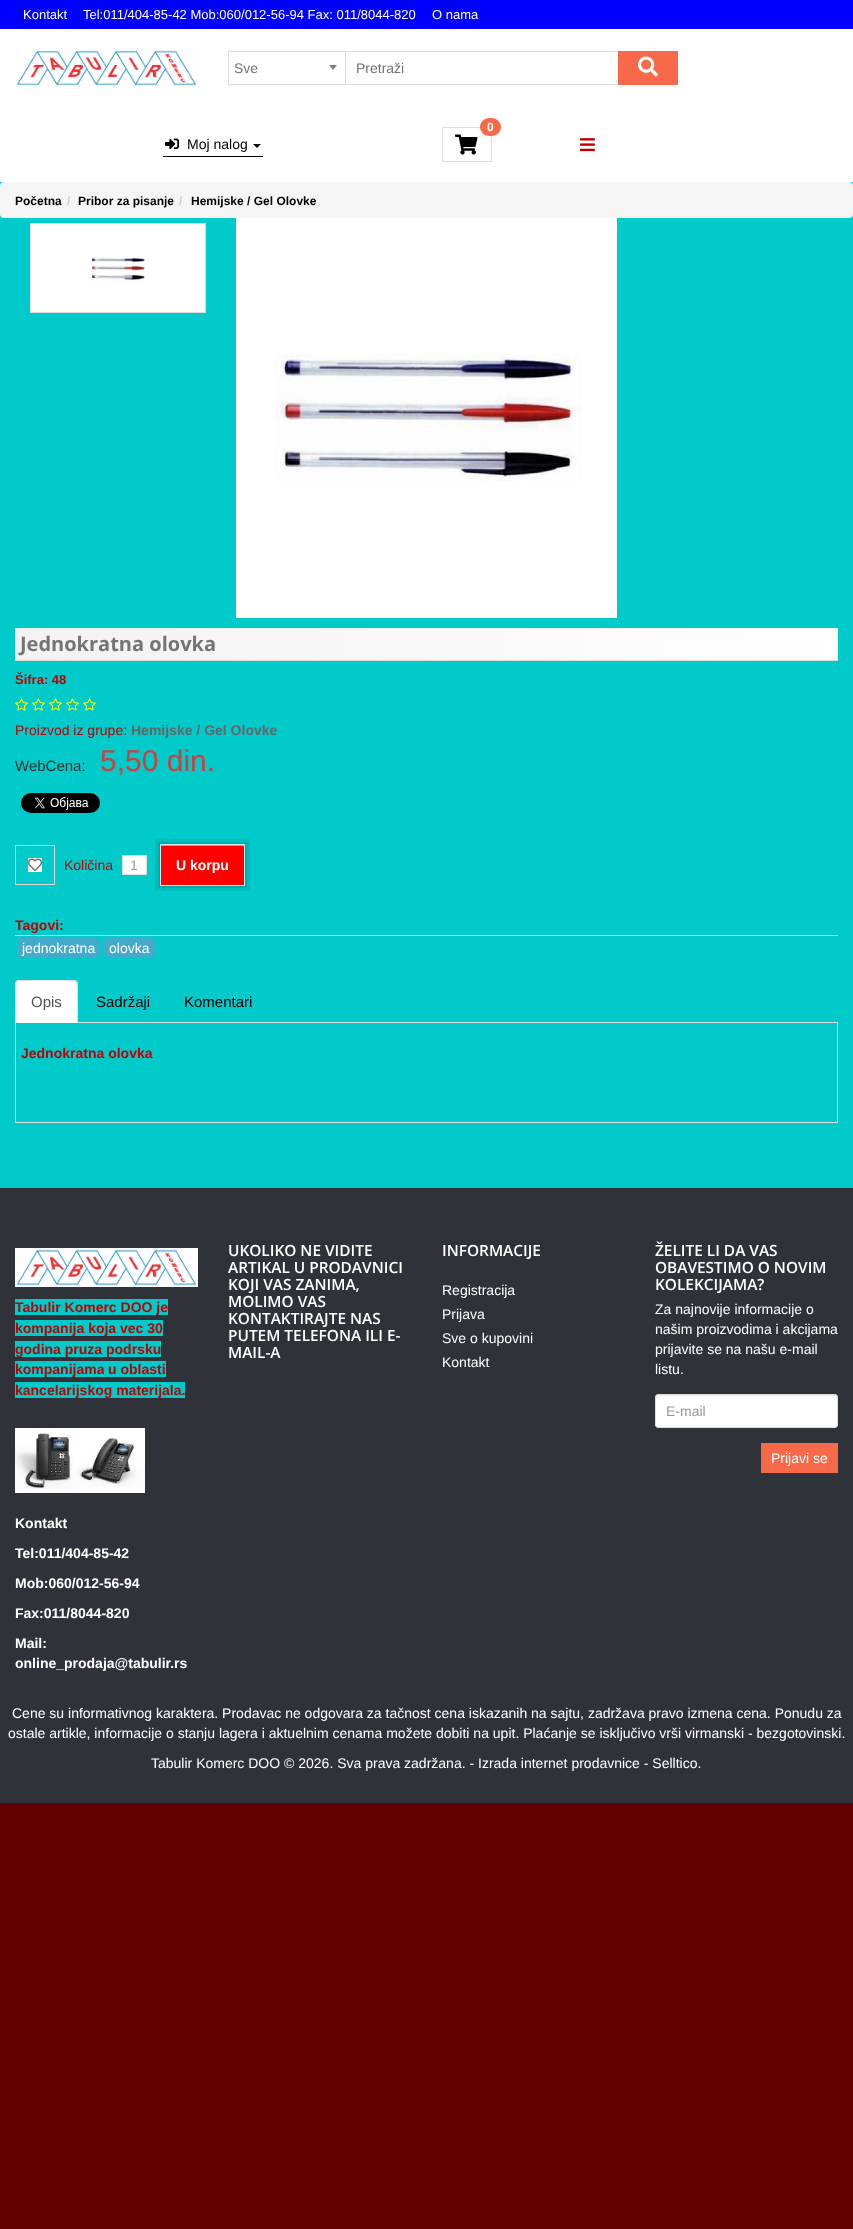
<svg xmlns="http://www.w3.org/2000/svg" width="853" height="2229">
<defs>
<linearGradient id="g1" gradientUnits="userSpaceOnUse" x1="838" y1="644" x2="15" y2="644"><stop offset="0" stop-color="#fff"/><stop offset="1" stop-color="#f2f2f2"/></linearGradient>
</defs>
<rect width="100%" height="100%" fill="#620000"/>
<rect width="853" height="29" fill="#00f"/>
<text x="23" y="19" style="font-family:Liberation Sans;font-size:13px;fill:#fff">Kontakt</text>
<text x="83" y="19" style="font-family:Liberation Sans;font-size:13px;fill:#fff">Tel:011/404-85-42 Mob:060/012-56-94 Fax: 011/8044-820</text>
<text x="432" y="19" style="font-family:Liberation Sans;font-size:13px;fill:#fff">O nama</text>
<rect y="29" width="853" height="153" fill="#fff"/>
<image x="16" y="50" width="181" height="36" href="media/1.png"/>
<rect x="228" y="51" width="390" height="1" fill="#ddd"/>
<rect x="228" y="84" width="390" height="1" fill="#ddd"/>
<rect x="228" y="51" width="1" height="34" fill="#ddd"/>
<text x="234" y="73" style="font-family:Liberation Sans;font-size:14px;fill:#747474">Sve</text>
<path d="M329 65h8l-4 5z" fill="#808080"/>
<rect x="345" y="51" width="1" height="34" fill="#ddd"/>
<text x="356" y="73" style="font-family:Liberation Sans;font-size:14px;fill:#747474">Pretraži</text>
<rect x="618" y="51" width="60" height="34" fill="#f8694a"/>
<image x="638" y="56" width="20" height="21" href="media/2.png"/>
<rect x="442.5" y="127.5" width="49" height="34" fill="none" stroke="#ddd"/>
<rect x="480" y="118" width="21" height="18" rx="9" fill="#f8694a"/>
<text x="487" y="131" style="font-family:Liberation Sans;font-size:12px;font-weight:bold;fill:#fff">0</text>
<image x="455" y="134" width="23" height="21" href="media/3.png"/>
<rect x="163" y="156" width="100" height="1" fill="#000"/>
<image x="165" y="138" width="14" height="12" href="media/4.png"/>
<text x="187" y="149" style="font-family:Liberation Sans;font-size:14px;fill:#000">Moj nalog</text>
<path d="M253 144h8l-4 4z" fill="#000"/>
<image x="580" y="138" width="15" height="14" href="media/5.png"/>
<rect y="182" width="853" height="1006" fill="#00caca"/>
<rect y="182" width="853" height="36" rx="4" fill="#f5f5f5"/>
<text x="15" y="205" style="font-family:Liberation Sans;font-size:12px;font-weight:bold;fill:#000">Početna</text>
<text x="67" y="205" style="font-family:Liberation Sans;font-size:12px;font-weight:bold;fill:#ccc">/</text>
<text x="78" y="205" style="font-family:Liberation Sans;font-size:12px;font-weight:bold;fill:#000">Pribor za pisanje</text>
<text x="179" y="205" style="font-family:Liberation Sans;font-size:12px;font-weight:bold;fill:#ccc">/</text>
<text x="191" y="205" style="font-family:Liberation Sans;font-size:12px;font-weight:bold;fill:#000">Hemijske / Gel Olovke</text>
<rect x="30.5" y="223.5" width="175" height="89" fill="#fff" stroke="#ddd"/>
<image x="90" y="257" width="56" height="24" href="media/6.png"/>
<rect x="236" y="218" width="381" height="400" fill="#fff"/>
<image x="275" y="354" width="307" height="127" href="media/7.png"/>
<rect x="15" y="628" width="823" height="32" fill="url(#g1)"/>
<rect x="15" y="660" width="823" height="1" fill="#ddd"/>
<text x="20" y="651" style="font-family:Open Sans;font-size:20px;font-weight:bold;fill:#747474">Jednokratna olovka</text>
<text x="15" y="684" style="font-family:Liberation Sans;font-size:13px;font-weight:bold;fill:#bf0000">Šifra: 48</text>
<image x="15" y="698" width="13" height="13" href="media/8.png"/>
<image x="32" y="698" width="13" height="13" href="media/8.png"/>
<image x="49" y="698" width="13" height="13" href="media/8.png"/>
<image x="66" y="698" width="13" height="13" href="media/8.png"/>
<image x="83" y="698" width="13" height="13" href="media/8.png"/>
<text x="15" y="735" style="font-family:Liberation Sans;font-size:14px;fill:#bf0000">Proizvod iz grupe:</text>
<text x="131" y="735" style="font-family:Liberation Sans;font-size:14px;font-weight:bold;fill:#666">Hemijske / Gel Olovke</text>
<text x="15" y="771" style="font-family:Liberation Sans;font-size:15px;fill:#333">WebCena:</text>
<text x="100" y="771" style="font-family:Liberation Sans;font-size:30px;fill:#d13e3b">5,50 din.</text>
<image x="21" y="793" width="79" height="20" href="media/9.png"/>
<rect x="15.5" y="845.5" width="39" height="39" fill="none" stroke="#dadada"/>
<rect x="28" y="858" width="14" height="14" fill="#fff"/>
<image x="28" y="858" width="14" height="13" href="media/10.png"/>
<text x="64" y="870" style="font-family:Liberation Sans;font-size:14px;fill:#bf0000">Količina</text>
<rect x="122.5" y="855.5" width="24" height="19" fill="#fff" stroke="#ddd"/>
<text x="130" y="870" style="font-family:Liberation Sans;font-size:14px;fill:#999">1</text>
<rect x="159.5" y="843.5" width="86" height="43" fill="none" stroke="#00b6b6" stroke-width="3"/>
<rect x="158" y="842" width="89" height="46" fill="none" stroke="#0000000f" stroke-width="6"/>
<rect x="160" y="844" width="85" height="42" fill="#ffffffcc" filter="blur(0.5px)"/>
<rect x="161" y="846" width="83" height="39" fill="#f00"/>
<rect x="161" y="845" width="83" height="1" fill="#ff8080"/>
<text x="176" y="870" style="font-family:Liberation Sans;font-size:14px;font-weight:bold;fill:#fff">U korpu</text>
<rect x="15" y="935" width="823" height="1" fill="#ddd"/>
<text x="15" y="930" style="font-family:Liberation Sans;font-size:14px;font-weight:bold;fill:#bf0000">Tagovi:</text>
<rect x="17" y="938" width="83" height="20" rx="5" fill="#44aacb"/>
<text x="22" y="953" style="font-family:Liberation Sans;font-size:14px;fill:#fff">jednokratna</text>
<rect x="104" y="938" width="51" height="20" rx="5" fill="#44aacb"/>
<text x="109" y="953" style="font-family:Liberation Sans;font-size:14px;fill:#fff">olovka</text>
<rect x="78" y="1022" width="760" height="1" fill="#ddd"/>
<path d="M19 980h55c2 0 4 2 4 4v39h-63v-39c0-2 2-4 4-4z" fill="#fff"/>
<path d="M19 980l-3 1l1 1l2-1c5 0 55-1 57 1l1-1l-3-1z" fill="#ddd"/>
<path d="M78 1023v-39c0-1 0-2-1-3l-1 1c2 2 1 35 1 40zm-63 0l1-1c0-5-1-38 1-40l-1-1l-1 3z" fill="#ddd"/>
<text x="31" y="1007" style="font-family:Liberation Sans;font-size:15px;fill:#555">Opis</text>
<text x="96" y="1007" style="font-family:Liberation Sans;font-size:15px;fill:#000">Sadržaji</text>
<text x="184" y="1007" style="font-family:Liberation Sans;font-size:15px;fill:#000">Komentari</text>
<rect x="837" y="1023" width="1" height="100" fill="#ddd"/>
<rect x="15" y="1122" width="823" height="1" fill="#ddd"/>
<rect x="15" y="1023" width="1" height="100" fill="#ddd"/>
<text x="21" y="1058" style="font-family:Liberation Sans;font-size:14px;font-weight:bold;fill:#bf0000">Jednokratna olovka</text>
<rect y="1188" width="853" height="615" fill="#30323a"/>
<image x="15" y="1248" width="183" height="39" href="media/11.png"/>
<rect x="15" y="1299" width="153" height="16" fill="#00caca"/>
<text x="15" y="1312" style="font-family:Liberation Sans;font-size:14px;font-weight:bold;fill:#bf0000">Tabulir Komerc DOO je</text>
<rect x="15" y="1320" width="148" height="16" fill="#00caca"/>
<text x="15" y="1333" style="font-family:Liberation Sans;font-size:14px;font-weight:bold;fill:#bf0000">kompanija koja vec 30</text>
<rect x="15" y="1341" width="146" height="16" fill="#00caca"/>
<text x="15" y="1354" style="font-family:Liberation Sans;font-size:14px;font-weight:bold;fill:#bf0000">godina pruza podrsku</text>
<rect x="15" y="1361" width="89" height="16" fill="#00caca"/>
<text x="15" y="1374" style="font-family:Liberation Sans;font-size:14px;font-weight:bold;fill:#bf0000">kompanijama</text>
<rect x="104" y="1361" width="62" height="16" fill="#00caca"/>
<text x="108" y="1374" style="font-family:Liberation Sans;font-size:14px;font-weight:bold;fill:#bf0000">u oblasti</text>
<rect x="15" y="1382" width="170" height="16" fill="#00caca"/>
<text x="15" y="1395" style="font-family:Liberation Sans;font-size:14px;font-weight:bold;fill:#bf0000">kancelarijskog materijala.</text>
<text x="228" y="1256" style="font-family:Open Sans;font-size:15.4px;font-weight:600;fill:#fff">UKOLIKO NE VIDITE</text>
<text x="228" y="1273" style="font-family:Open Sans;font-size:15.4px;font-weight:600;fill:#fff">ARTIKAL U PRODAVNICI</text>
<text x="228" y="1290" style="font-family:Open Sans;font-size:15.4px;font-weight:600;fill:#fff">KOJI VAS ZANIMA,</text>
<text x="228" y="1307" style="font-family:Open Sans;font-size:15.4px;font-weight:600;fill:#fff">MOLIMO VAS</text>
<text x="228" y="1324" style="font-family:Open Sans;font-size:15.4px;font-weight:600;fill:#fff">KONTAKTIRAJTE NAS</text>
<text x="228" y="1341" style="font-family:Open Sans;font-size:15.4px;font-weight:600;fill:#fff">PUTEM TELEFONA ILI E-</text>
<text x="228" y="1358" style="font-family:Open Sans;font-size:15.4px;font-weight:600;fill:#fff">MAIL-A</text>
<text x="442" y="1256" style="font-family:Open Sans;font-size:15.4px;font-weight:600;fill:#fff">INFORMACIJE</text>
<text x="442" y="1295" style="font-family:Liberation Sans;font-size:14px;fill:#fff">Registracija</text>
<text x="442" y="1319" style="font-family:Liberation Sans;font-size:14px;fill:#fff">Prijava</text>
<text x="442" y="1343" style="font-family:Liberation Sans;font-size:14px;fill:#fff">Sve o kupovini</text>
<text x="442" y="1367" style="font-family:Liberation Sans;font-size:14px;fill:#fff">Kontakt</text>
<image x="15" y="1428" width="130" height="65" href="media/12.png"/>
<text x="15" y="1528" style="font-family:Liberation Sans;font-size:14px;font-weight:bold;fill:#fff">Kontakt</text>
<text x="15" y="1558" style="font-family:Liberation Sans;font-size:14px;font-weight:bold;fill:#fff">Tel:011/404-85-42</text>
<text x="15" y="1588" style="font-family:Liberation Sans;font-size:14px;font-weight:bold;fill:#fff">Mob:060/012-56-94</text>
<text x="15" y="1618" style="font-family:Liberation Sans;font-size:14px;font-weight:bold;fill:#fff">Fax:011/8044-820</text>
<text x="15" y="1648" style="font-family:Liberation Sans;font-size:14px;font-weight:bold;fill:#fff">Mail:</text>
<text x="15" y="1668" style="font-family:Liberation Sans;font-size:14px;font-weight:bold;fill:#fff">online_prodaja@tabulir.rs</text>
<text x="655" y="1256" style="font-family:Open Sans;font-size:15.4px;font-weight:600;fill:#fff">ŽELITE LI DA VAS</text>
<text x="655" y="1273" style="font-family:Open Sans;font-size:15.4px;font-weight:600;fill:#fff">OBAVESTIMO O NOVIM</text>
<text x="655" y="1290" style="font-family:Open Sans;font-size:15.4px;font-weight:600;fill:#fff">KOLEKCIJAMA?</text>
<text x="655" y="1314" style="font-family:Liberation Sans;font-size:14px;fill:#fff">Za najnovije informacije o</text>
<text x="655" y="1334" style="font-family:Liberation Sans;font-size:14px;fill:#fff">našim proizvodima i akcijama</text>
<text x="655" y="1354" style="font-family:Liberation Sans;font-size:14px;fill:#fff">prijavite se na našu e-mail</text>
<text x="655" y="1374" style="font-family:Liberation Sans;font-size:14px;fill:#fff">listu.</text>
<rect x="655" y="1394" width="183" height="34" rx="4" fill="#fff"/>
<path d="M659 1396h176l1 1l1 2v-1c0-2-1-3-3-3h-175c-2 0-3 1-3 3v1c0-2 1-3 3-3z" fill="#ececec"/>
<rect x="655.5" y="1394.5" width="182" height="33" rx="3.5" fill="none" stroke="#ddd"/>
<text x="666" y="1416" style="font-family:Liberation Sans;font-size:14px;fill:#999">E-mail</text>
<rect x="761" y="1443" width="77" height="30" fill="#f8694a"/>
<text x="771" y="1463" style="font-family:Liberation Sans;font-size:14px;fill:#fff">Prijavi se</text>
<text x="12" y="1718" style="font-family:Liberation Sans;font-size:14px;fill:#fff">Cene su informativnog karaktera. Prodavac ne odgovara za tačnost cena iskazanih na sajtu, zadržava pravo izmena cena. Ponudu za</text>
<text x="8" y="1738" style="font-family:Liberation Sans;font-size:14px;fill:#fff">ostale artikle, informacije o stanju lagera i aktuelnim cenama možete dobiti na upit. Plaćanje se isključivo vrši virmanski - bezgotovinski.</text>
<text x="151" y="1768" style="font-family:Liberation Sans;font-size:14px;fill:#fff">Tabulir Komerc DOO © 2026. Sva prava zadržana. - Izrada internet prodavnice - Selltico.</text>
</svg>
